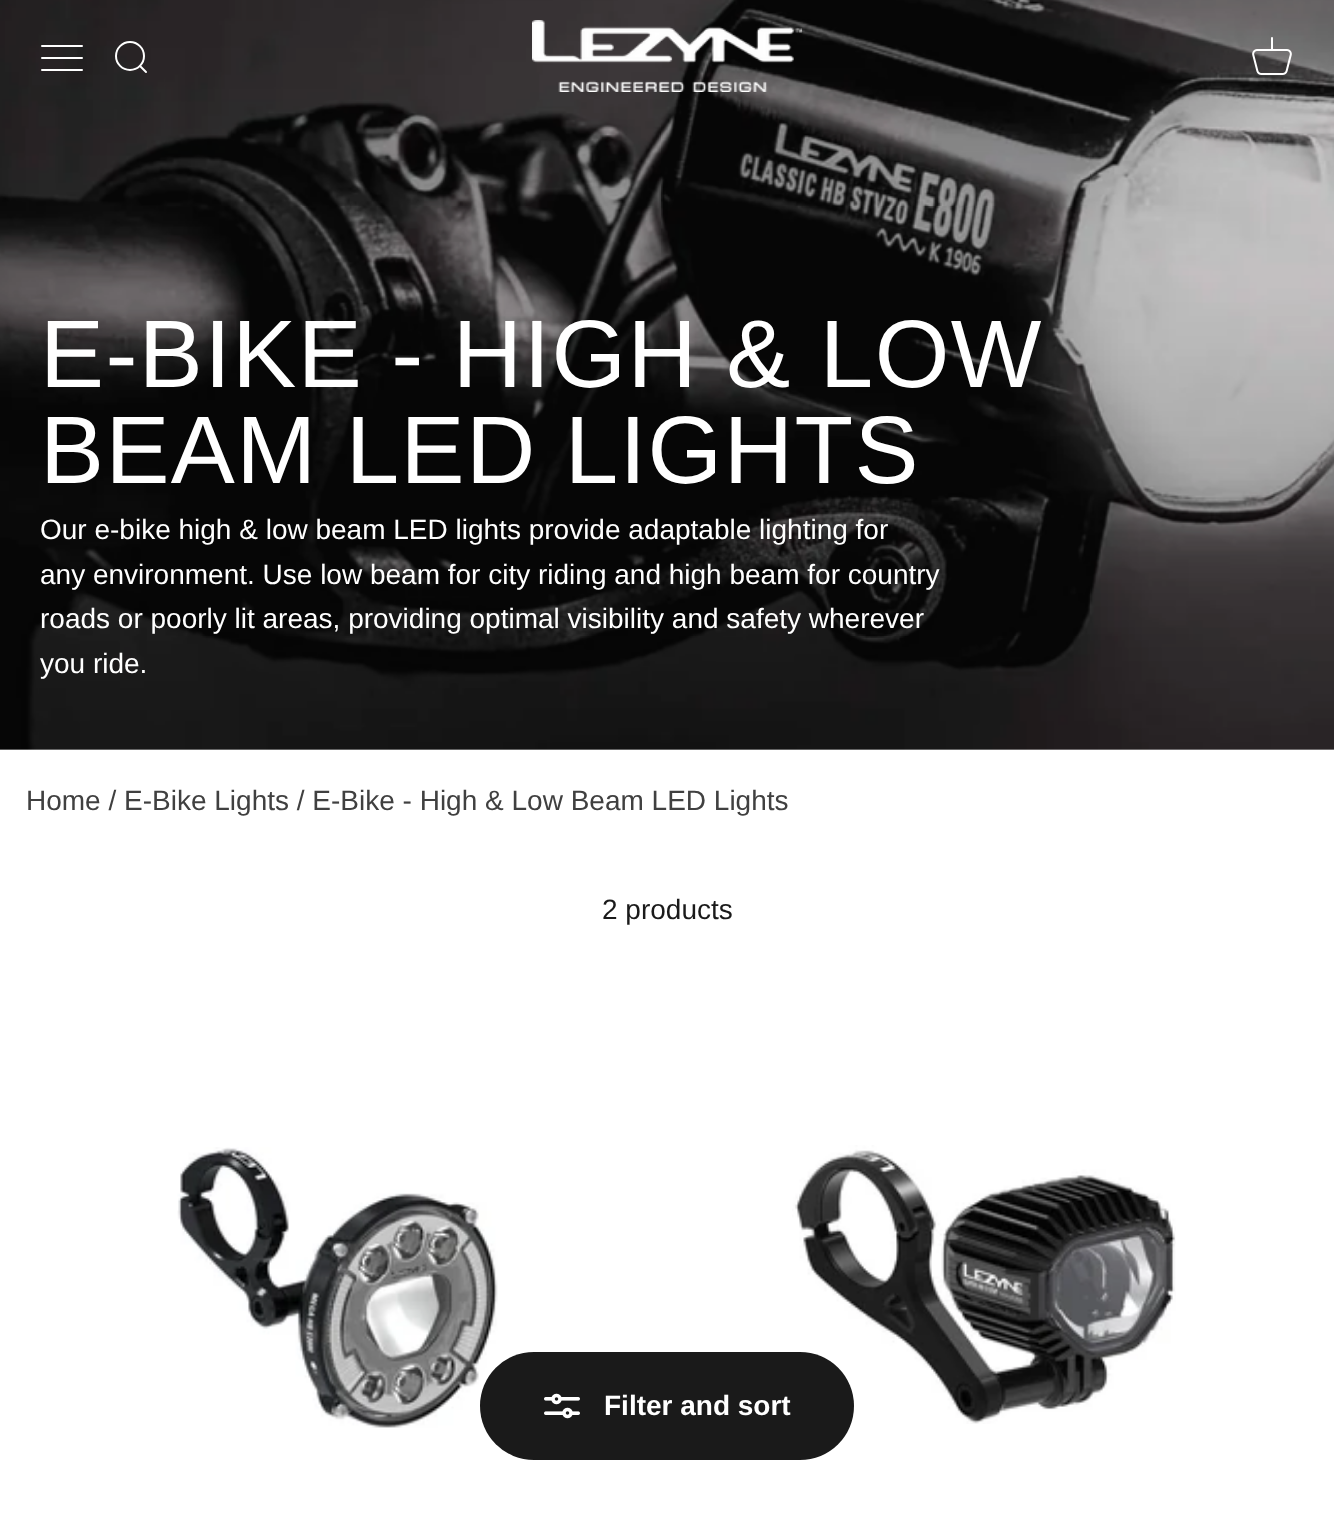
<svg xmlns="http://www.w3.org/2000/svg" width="1334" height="1523">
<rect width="100%" height="100%" fill="#fff"/>
<rect y="749" width="1334" height="1" fill="#f7f7f7"/>
<image x="0" y="0" width="1334" height="750" href="media/3.png"/>
<path d="M42 46h40m-40 12h40m-40 12h40" fill="none" stroke="#fff" stroke-width="2" stroke-linecap="round"/>
<circle cx="130" cy="56" r="14" fill="none" stroke="#fff" stroke-width="2"/>
<path d="M140 66l6 6" fill="none" stroke="#fff" stroke-width="2" stroke-linecap="round" stroke-linejoin="round"/>
<image x="532" y="20" width="270" height="72" href="media/1.png"/>
<image x="1252" y="37" width="40" height="38" href="media/2.png"/>
<text x="40" y="387" style="font-family:Liberation Sans;font-size:96px;letter-spacing:1.4px;fill:#fff">E-BIKE - HIGH &amp; LOW</text>
<text x="40" y="483" style="font-family:Liberation Sans;font-size:96px;letter-spacing:1.4px;fill:#fff">BEAM LED LIGHTS</text>
<text x="40" y="539" style="font-family:Liberation Sans;font-size:28px;fill:#fff">Our e-bike high &amp; low beam LED lights provide adaptable lighting for</text>
<text x="40" y="584" style="font-family:Liberation Sans;font-size:28px;fill:#fff">any environment. Use low beam for city riding and high beam for country</text>
<text x="40" y="628" style="font-family:Liberation Sans;font-size:28px;fill:#fff">roads or poorly lit areas, providing optimal visibility and safety wherever</text>
<text x="40" y="673" style="font-family:Liberation Sans;font-size:28px;fill:#fff">you ride.</text>
<text x="26" y="810" style="font-family:Liberation Sans;font-size:28px;fill:#404040">Home / E-Bike Lights / E-Bike - High &amp; Low Beam LED Lights</text>
<text x="602" y="919" style="font-family:Liberation Sans;font-size:28px;fill:#1a1a1a">2 products</text>
<image x="177" y="1147" width="321" height="281" href="media/4.png"/>
<image x="792" y="1145" width="384" height="279" href="media/5.png"/>
<rect x="480" y="1352" width="374" height="108" rx="54" fill="#1a1a1a"/>
<image x="544" y="1393" width="36" height="26" href="media/6.png"/>
<text x="604" y="1415" style="font-family:Liberation Sans;font-size:28px;font-weight:bold;fill:#fff">Filter and sort</text>
</svg>
